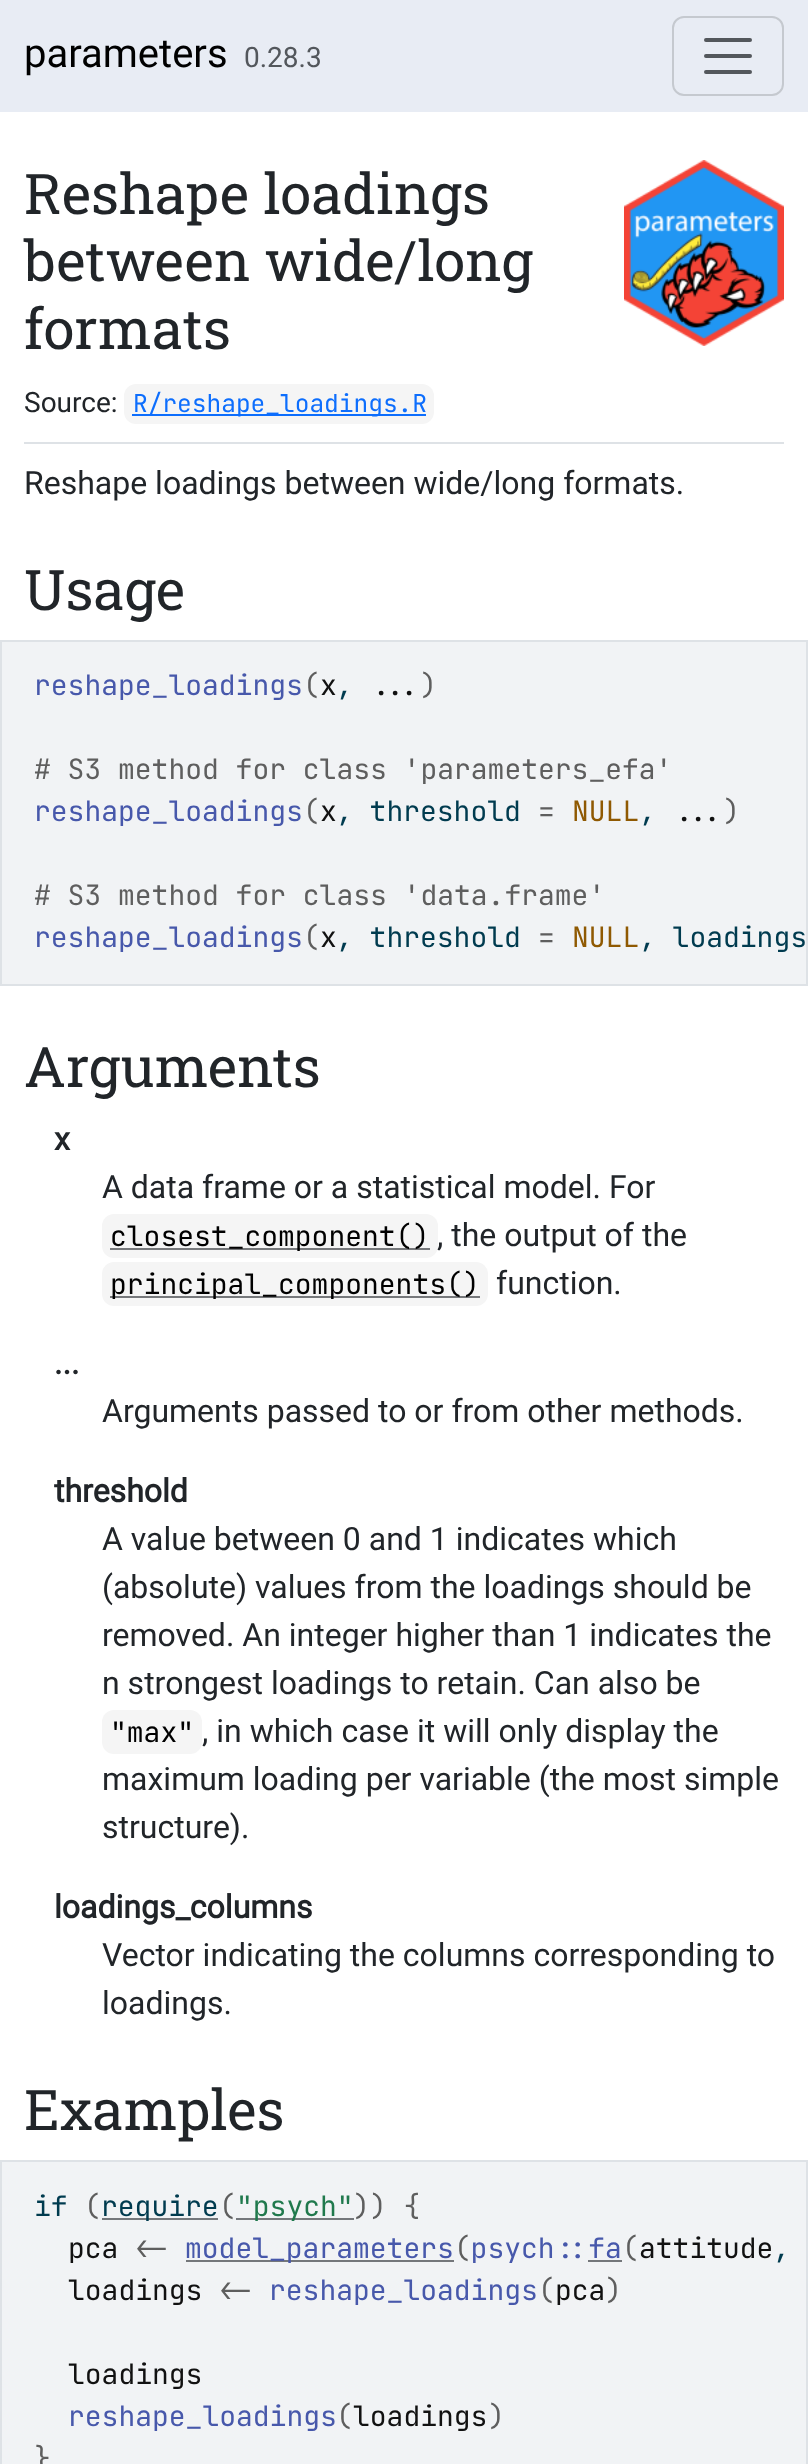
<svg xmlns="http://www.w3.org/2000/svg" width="808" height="2464">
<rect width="100%" height="100%" fill="#fff"/>
<rect width="808" height="112" fill="#e8ecf4"/>
<text x="24" y="67" style="font-family:Roboto;font-size:40px;fill:#000">parameters</text>
<text x="244" y="67" style="font-family:Roboto;font-size:28px;fill:#53575c">0.28.3</text>
<rect x="673" y="17" width="110" height="78" rx="11" fill="none" stroke="#c5c9cf" stroke-width="2"/>
<path d="M706 40h44m-44 16h44m-44 16h44" fill="none" stroke="#53575c" stroke-width="4" stroke-linecap="round"/>
<rect x="24" y="442" width="760" height="2" fill="#dee2e6"/>
<text x="24" y="214" style="font-family:Roboto Slab;font-size:56.1px;fill:#212529">Reshape loadings</text>
<text x="24" y="281" style="font-family:Roboto Slab;font-size:56.1px;fill:#212529">between wide/long</text>
<text x="24" y="349" style="font-family:Roboto Slab;font-size:56.1px;fill:#212529">formats</text>
<image x="624" y="160" width="160" height="186" href="media/1.png"/>
<text x="24" y="412" style="font-family:Roboto;font-size:28px;fill:#212529">Source:</text>
<rect x="124" y="384" width="310" height="40" rx="12" fill="#f5f5f5"/>
<rect x="132" y="414" width="294" height="2" fill="#0d6efd"/>
<text x="133" y="412" style="font-family:JetBrains Mono;font-size:24.5px;fill:#0d6efd">R/reshape_loadings.R</text>
<text x="24" y="494" style="font-family:Roboto;font-size:32px;fill:#212529">Reshape loadings between wide/long formats.</text>
<text x="24" y="610" style="font-family:Roboto Slab;font-size:56px;fill:#212529">Usage</text>
<rect x="1" y="641" width="806" height="344" fill="#f1f3f5" stroke="#dee2e6" stroke-width="2"/>
<text x="34" y="695" style="font-family:JetBrains Mono;font-size:28px;fill:#4758ab">reshape_loadings</text>
<text x="303" y="695" style="font-family:JetBrains Mono;font-size:28px;fill:#5e5e5e">(</text>
<text x="320" y="695" style="font-family:JetBrains Mono;font-size:28px;fill:#111">x</text>
<text x="336" y="695" style="font-family:JetBrains Mono;font-size:28px;fill:#003b4f">,</text>
<text x="370" y="695" style="font-family:JetBrains Mono;font-size:28px;fill:#111">...</text>
<text x="420" y="695" style="font-family:JetBrains Mono;font-size:28px;fill:#5e5e5e">)</text>
<text x="34" y="779" style="font-family:JetBrains Mono;font-size:28px;fill:#5e5e5e"># S3 method for class 'parameters_efa'</text>
<text x="34" y="821" style="font-family:JetBrains Mono;font-size:28px;fill:#4758ab">reshape_loadings</text>
<text x="303" y="821" style="font-family:JetBrains Mono;font-size:28px;fill:#5e5e5e">(</text>
<text x="320" y="821" style="font-family:JetBrains Mono;font-size:28px;fill:#111">x</text>
<text x="336" y="821" style="font-family:JetBrains Mono;font-size:28px;fill:#003b4f">, threshold</text>
<text x="538" y="821" style="font-family:JetBrains Mono;font-size:28px;fill:#5e5e5e">=</text>
<text x="572" y="821" style="font-family:JetBrains Mono;font-size:28px;fill:#8f5902">NULL</text>
<text x="723" y="821" style="font-family:JetBrains Mono;font-size:28px;fill:#5e5e5e">)</text>
<text x="639" y="821" style="font-family:JetBrains Mono;font-size:28px;fill:#003b4f">,</text>
<text x="673" y="821" style="font-family:JetBrains Mono;font-size:28px;fill:#111">...</text>
<text x="34" y="905" style="font-family:JetBrains Mono;font-size:28px;fill:#5e5e5e"># S3 method for class 'data.frame'</text>
<text x="34" y="947" style="font-family:JetBrains Mono;font-size:28px;fill:#4758ab">reshape_loadings</text>
<text x="303" y="947" style="font-family:JetBrains Mono;font-size:28px;fill:#5e5e5e">(</text>
<text x="320" y="947" style="font-family:JetBrains Mono;font-size:28px;fill:#111">x</text>
<text x="336" y="947" style="font-family:JetBrains Mono;font-size:28px;fill:#003b4f">, threshold</text>
<text x="538" y="947" style="font-family:JetBrains Mono;font-size:28px;fill:#5e5e5e">=</text>
<text x="572" y="947" style="font-family:JetBrains Mono;font-size:28px;fill:#8f5902">NULL</text>
<text x="639" y="947" style="font-family:JetBrains Mono;font-size:28px;fill:#003b4f">, loadings</text>
<text x="24" y="1087" style="font-family:Roboto Slab;font-size:56px;fill:#212529">Arguments</text>
<text x="54" y="1150" style="font-family:Roboto;font-size:32px;font-weight:bold;fill:#212529">x</text>
<text x="102" y="1198" style="font-family:Roboto;font-size:32px;fill:#212529">A data frame or a statistical model. For</text>
<rect x="102" y="1214" width="336" height="44" rx="12" fill="#f5f5f5"/>
<rect x="110" y="1248" width="320" height="2" fill="#76787b"/>
<text x="110" y="1246" style="font-family:JetBrains Mono;font-size:28px;fill:#000">closest_component()</text>
<text x="437" y="1246" style="font-family:Roboto;font-size:32px;fill:#212529">, the output of the</text>
<rect x="102" y="1262" width="386" height="44" rx="12" fill="#f5f5f5"/>
<rect x="110" y="1296" width="370" height="2" fill="#76787b"/>
<text x="110" y="1294" style="font-family:JetBrains Mono;font-size:28px;fill:#000">principal_components()</text>
<text x="496" y="1294" style="font-family:Roboto;font-size:32px;fill:#212529">function.</text>
<text x="54" y="1374" style="font-family:Roboto;font-size:32px;font-weight:bold;fill:#212529">...</text>
<text x="102" y="1422" style="font-family:Roboto;font-size:32px;fill:#212529">Arguments passed to or from other methods.</text>
<text x="54" y="1502" style="font-family:Roboto;font-size:32px;font-weight:bold;fill:#212529">threshold</text>
<text x="102" y="1550" style="font-family:Roboto;font-size:32px;fill:#212529">A value between 0 and 1 indicates which</text>
<text x="102" y="1598" style="font-family:Roboto;font-size:32px;fill:#212529">(absolute) values from the loadings should be</text>
<text x="102" y="1646" style="font-family:Roboto;font-size:32px;fill:#212529">removed. An integer higher than 1 indicates the</text>
<text x="102" y="1694" style="font-family:Roboto;font-size:32px;fill:#212529">n strongest loadings to retain. Can also be</text>
<rect x="102" y="1710" width="100" height="44" rx="12" fill="#f5f5f5"/>
<text x="110" y="1742" style="font-family:JetBrains Mono;font-size:28px;fill:#000">"max"</text>
<text x="202" y="1742" style="font-family:Roboto;font-size:32px;fill:#212529">, in which case it will only display the</text>
<text x="102" y="1790" style="font-family:Roboto;font-size:32px;fill:#212529">maximum loading per variable (the most simple</text>
<text x="102" y="1838" style="font-family:Roboto;font-size:32px;fill:#212529">structure).</text>
<text x="54" y="1918" style="font-family:Roboto;font-size:32px;font-weight:bold;fill:#212529">loadings_columns</text>
<text x="102" y="1966" style="font-family:Roboto;font-size:32px;fill:#212529">Vector indicating the columns corresponding to</text>
<text x="102" y="2014" style="font-family:Roboto;font-size:32px;fill:#212529">loadings.</text>
<text x="24" y="2130" style="font-family:Roboto Slab;font-size:56px;fill:#212529">Examples</text>
<rect x="1" y="2161" width="806" height="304" fill="#f1f3f5" stroke="#dee2e6" stroke-width="2"/>
<text x="34" y="2216" style="font-family:JetBrains Mono;font-size:28px;fill:#003b4f">if</text>
<text x="84" y="2216" style="font-family:JetBrains Mono;font-size:28px;fill:#5e5e5e">(</text>
<rect x="102" y="2218" width="116" height="2" fill="#74777b"/>
<text x="101" y="2216" style="font-family:JetBrains Mono;font-size:28px;fill:#003b4f">require</text>
<text x="219" y="2216" style="font-family:JetBrains Mono;font-size:28px;fill:#5e5e5e">(</text>
<rect x="236" y="2218" width="118" height="2" fill="#74777b"/>
<text x="236" y="2216" style="font-family:JetBrains Mono;font-size:28px;fill:#20794d">"psych"</text>
<text x="353" y="2216" style="font-family:JetBrains Mono;font-size:28px;fill:#5e5e5e">)) {</text>
<rect x="186" y="2260" width="268" height="2" fill="#74777b"/>
<text x="185" y="2258" style="font-family:JetBrains Mono;font-size:28px;fill:#4758ab">model_parameters psych::fa</text>
<text x="454" y="2258" style="font-family:JetBrains Mono;font-size:28px;fill:#5e5e5e">(</text>
<text x="622" y="2258" style="font-family:JetBrains Mono;font-size:28px;fill:#5e5e5e">(</text>
<text x="639" y="2258" style="font-family:JetBrains Mono;font-size:28px;fill:#111">attitude</text>
<text x="68" y="2258" style="font-family:JetBrains Mono;font-size:28px;fill:#111">pca</text>
<text x="135" y="2258" style="font-family:JetBrains Mono;font-size:28px;fill:#5e5e5e">&lt;-</text>
<rect x="588" y="2260" width="34" height="2" fill="#74777b"/>
<text x="773" y="2258" style="font-family:JetBrains Mono;font-size:28px;fill:#003b4f">,</text>
<text x="68" y="2300" style="font-family:JetBrains Mono;font-size:28px;fill:#111">loadings</text>
<text x="219" y="2300" style="font-family:JetBrains Mono;font-size:28px;fill:#5e5e5e">&lt;-</text>
<text x="269" y="2300" style="font-family:JetBrains Mono;font-size:28px;fill:#4758ab">reshape_loadings</text>
<text x="538" y="2300" style="font-family:JetBrains Mono;font-size:28px;fill:#5e5e5e">(</text>
<text x="555" y="2300" style="font-family:JetBrains Mono;font-size:28px;fill:#111">pca</text>
<text x="605" y="2300" style="font-family:JetBrains Mono;font-size:28px;fill:#5e5e5e">)</text>
<text x="68" y="2384" style="font-family:JetBrains Mono;font-size:28px;fill:#111">loadings</text>
<text x="68" y="2426" style="font-family:JetBrains Mono;font-size:28px;fill:#4758ab">reshape_loadings</text>
<text x="336" y="2426" style="font-family:JetBrains Mono;font-size:28px;fill:#5e5e5e">(</text>
<text x="353" y="2426" style="font-family:JetBrains Mono;font-size:28px;fill:#111">loadings</text>
<text x="488" y="2426" style="font-family:JetBrains Mono;font-size:28px;fill:#5e5e5e">)</text>
<text x="34" y="2468" style="font-family:JetBrains Mono;font-size:28px;fill:#5e5e5e">}</text>
</svg>
